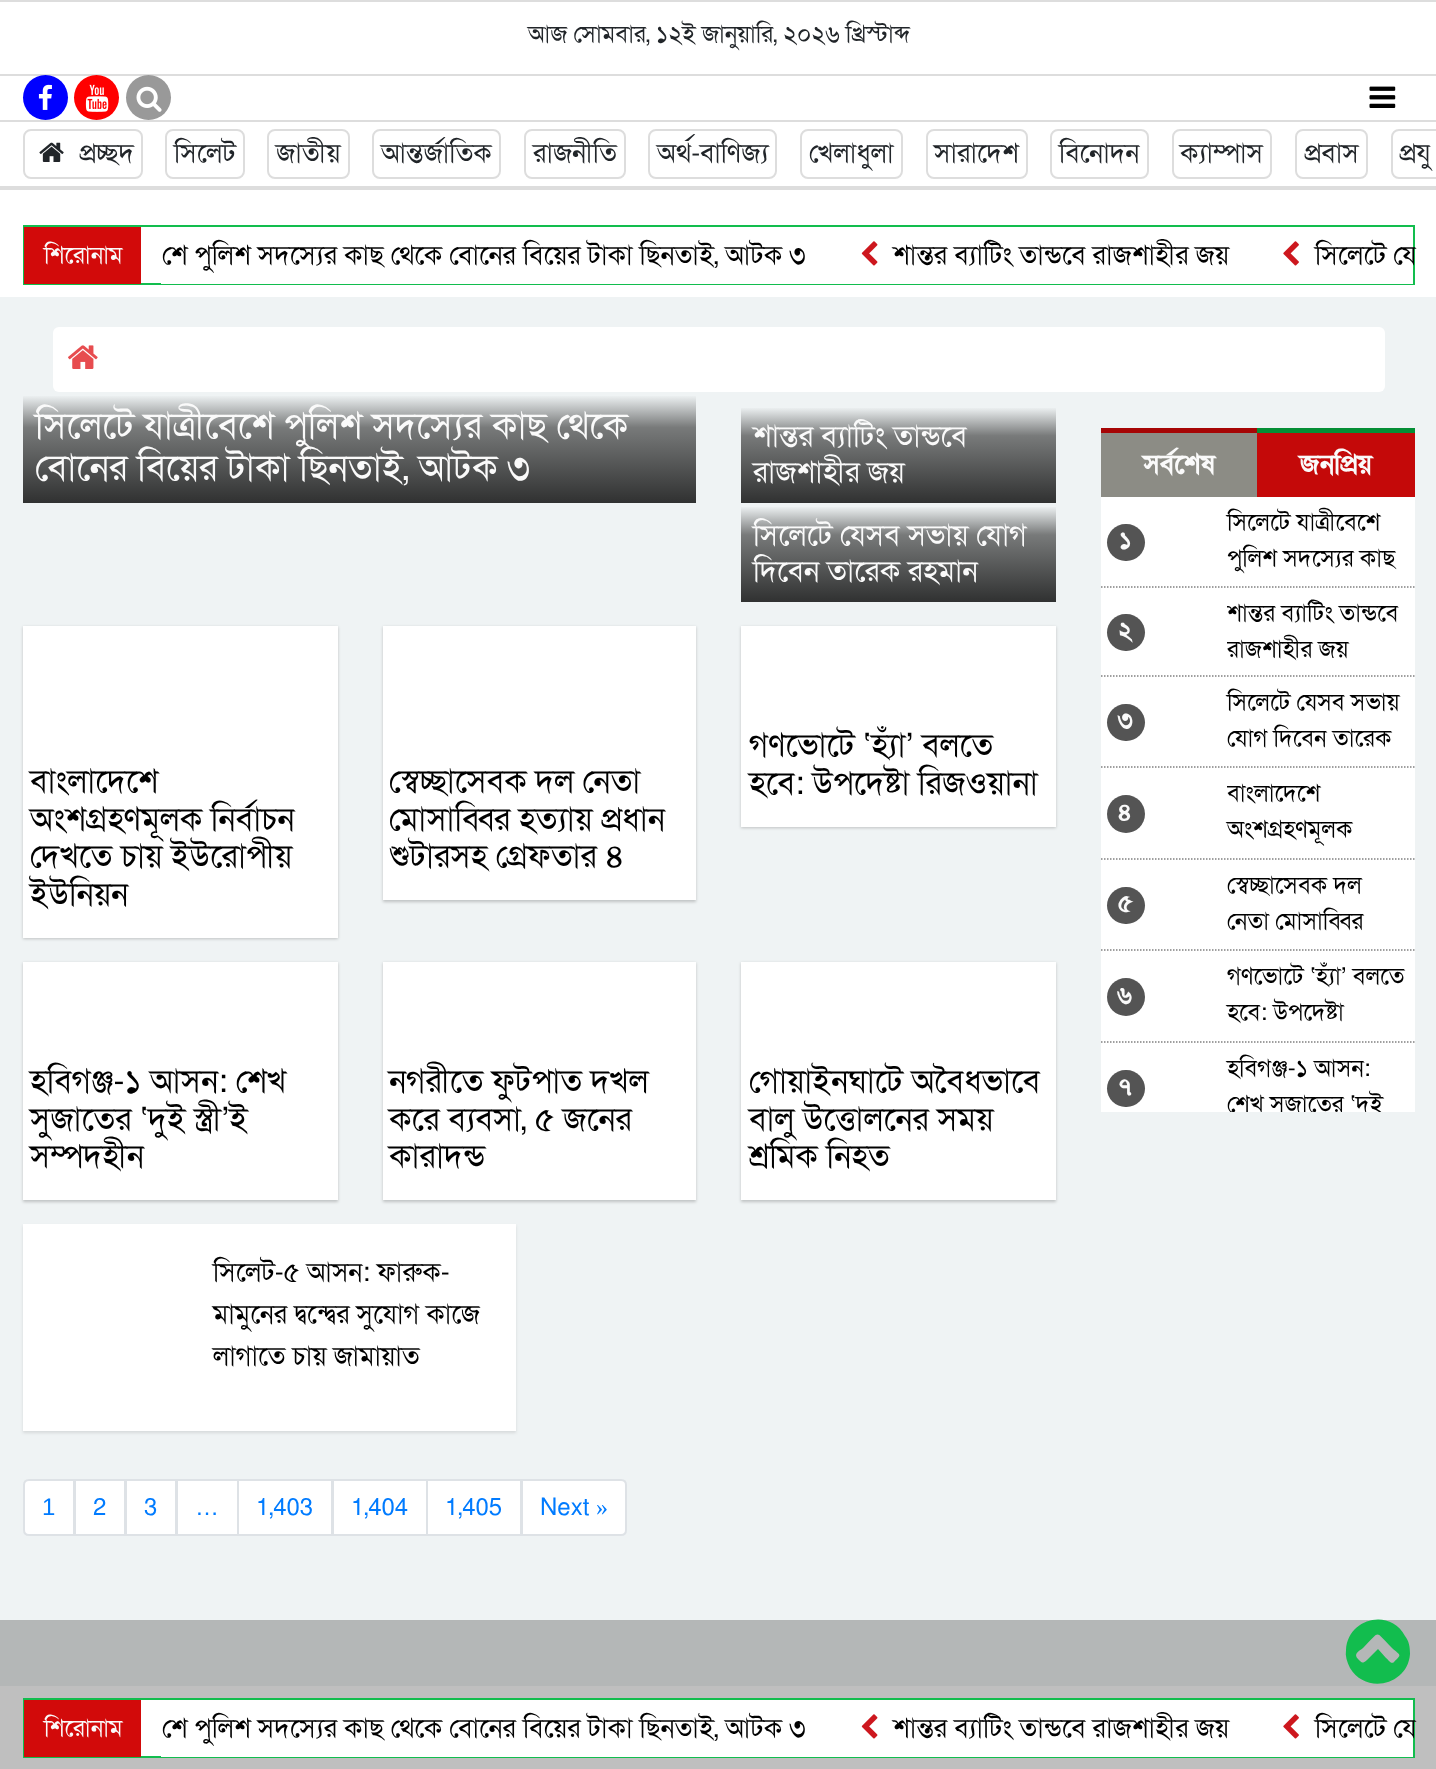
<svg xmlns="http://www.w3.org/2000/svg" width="1436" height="1769">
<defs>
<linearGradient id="g1" gradientUnits="userSpaceOnUse" x1="359" y1="395" x2="359" y2="503"><stop offset="0" stop-color="#eff3f4"/><stop offset="0.3" stop-color="#787a7a"/><stop offset="1" stop-color="#303131"/></linearGradient>
<linearGradient id="g2" gradientUnits="userSpaceOnUse" x1="899" y1="407" x2="899" y2="503"><stop offset="0" stop-color="#eff3f4"/><stop offset="0.3" stop-color="#787a7a"/><stop offset="1" stop-color="#303131"/></linearGradient>
<linearGradient id="g3" gradientUnits="userSpaceOnUse" x1="899" y1="506" x2="899" y2="602"><stop offset="0" stop-color="#eff3f4"/><stop offset="0.3" stop-color="#787a7a"/><stop offset="1" stop-color="#303131"/></linearGradient>
<clipPath id="clip1"><rect x="1227" y="504" width="180" height="75"/></clipPath>
<clipPath id="clip2"><rect x="1227" y="596" width="180" height="72"/></clipPath>
<clipPath id="clip3"><rect x="1227" y="684" width="180" height="75"/></clipPath>
<clipPath id="clip4"><rect x="1227" y="776" width="180" height="75"/></clipPath>
<clipPath id="clip5"><rect x="1227" y="1050" width="180" height="62"/></clipPath>
</defs>
<rect width="100%" height="100%" fill="#fff"/>
<rect width="1436" height="2" fill="#ddd"/>
<text x="528" y="42" style="font-family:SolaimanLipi;font-size:24px;fill:#212529">আজ সোমবার, ১২ই জানুয়ারি, ২০২৬ খ্রিস্টাব্দ</text>
<rect y="74" width="1436" height="2" fill="#ddd"/>
<rect y="186" width="1436" height="4" fill="#ddd"/>
<circle cx="45.5" cy="97.5" r="22.5" fill="#00f"/>
<image x="38" y="84" width="14" height="26" href="media/1.png"/>
<circle cx="96.5" cy="97.5" r="22.5" fill="#f00"/>
<image x="85" y="84" width="24" height="28" href="media/2.png"/>
<circle cx="148.5" cy="97.5" r="22.5" fill="#999"/>
<image x="136" y="86" width="26" height="26" href="media/3.png"/>
<image x="1369" y="86" width="27" height="22" href="media/4.png"/>
<rect y="120" width="1436" height="2" fill="#ddd"/>
<rect x="24" y="130" width="118" height="48" rx="7" fill="none" stroke="#ddd" stroke-width="2"/>
<image x="39" y="142" width="25" height="20" href="media/5.png"/>
<text x="79" y="162" style="font-family:SolaimanLipi;font-size:27px;fill:#212529">প্রচ্ছদ</text>
<rect x="166" y="130" width="78" height="48" rx="7" fill="none" stroke="#ddd" stroke-width="2"/>
<text x="174" y="162" style="font-family:SolaimanLipi;font-size:27px;fill:#212529">সিলেট</text>
<rect x="268" y="130" width="81" height="48" rx="7" fill="none" stroke="#ddd" stroke-width="2"/>
<text x="276" y="162" style="font-family:SolaimanLipi;font-size:27px;fill:#212529">জাতীয়</text>
<rect x="373" y="130" width="127" height="48" rx="7" fill="none" stroke="#ddd" stroke-width="2"/>
<text x="381" y="162" style="font-family:SolaimanLipi;font-size:27px;fill:#212529">আন্তর্জাতিক</text>
<rect x="525" y="130" width="100" height="48" rx="7" fill="none" stroke="#ddd" stroke-width="2"/>
<text x="533" y="162" style="font-family:SolaimanLipi;font-size:27px;fill:#212529">রাজনীতি</text>
<rect x="649" y="130" width="127" height="48" rx="7" fill="none" stroke="#ddd" stroke-width="2"/>
<text x="657" y="162" style="font-family:SolaimanLipi;font-size:27px;fill:#212529">অর্থ-বাণিজ্য</text>
<rect x="801" y="130" width="101" height="48" rx="7" fill="none" stroke="#ddd" stroke-width="2"/>
<text x="809" y="162" style="font-family:SolaimanLipi;font-size:27px;fill:#212529">খেলাধুলা</text>
<rect x="927" y="130" width="100" height="48" rx="7" fill="none" stroke="#ddd" stroke-width="2"/>
<text x="934" y="162" style="font-family:SolaimanLipi;font-size:27px;fill:#212529">সারাদেশ</text>
<rect x="1051" y="130" width="97" height="48" rx="7" fill="none" stroke="#ddd" stroke-width="2"/>
<text x="1059" y="162" style="font-family:SolaimanLipi;font-size:27px;fill:#212529">বিনোদন</text>
<rect x="1173" y="130" width="98" height="48" rx="7" fill="none" stroke="#ddd" stroke-width="2"/>
<text x="1180" y="162" style="font-family:SolaimanLipi;font-size:27px;fill:#212529">ক্যাম্পাস</text>
<rect x="1296" y="130" width="71" height="48" rx="7" fill="none" stroke="#ddd" stroke-width="2"/>
<text x="1304" y="162" style="font-family:SolaimanLipi;font-size:27px;fill:#212529">প্রবাস</text>
<rect x="1392" y="130" width="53" height="48" rx="7" fill="none" stroke="#ddd" stroke-width="2"/>
<text x="1399" y="162" style="font-family:SolaimanLipi;font-size:27px;fill:#212529">প্রযু</text>
<rect x="24" y="226" width="1390" height="58" fill="none" stroke="#12bd4e" stroke-width="2"/>
<rect x="24" y="227" width="117" height="57" fill="#d20a0a"/>
<text x="44" y="263" style="font-family:SolaimanLipi;font-size:24px;fill:#fafafa">শিরোনাম</text>
<text x="162" y="264" style="font-family:SolaimanLipi;font-size:27px;fill:#000">শে পুলিশ সদস্যের কাছ থেকে বোনের বিয়ের টাকা ছিনতাই, আটক ৩</text>
<image x="861" y="241" width="17" height="25" href="media/6.png"/>
<text x="893" y="264" style="font-family:SolaimanLipi;font-size:27px;fill:#000">শান্তর ব্যাটিং তান্ডবে রাজশাহীর জয়</text>
<image x="1283" y="241" width="16" height="25" href="media/7.png"/>
<text x="1315" y="264" style="font-family:SolaimanLipi;font-size:27px;fill:#000">সিলেটে যে</text>
<rect x="161" y="283" width="1252" height="1" fill="#fff"/>
<rect y="297" width="1436" height="1323" fill="#eff3f4"/>
<rect x="53" y="327" width="1332" height="65" rx="6" fill="#fff"/>
<image x="68" y="345" width="30" height="24" href="media/8.png"/>
<rect x="23" y="396" width="673" height="107" fill="url(#g1)"/>
<text x="35" y="438" style="font-family:SolaimanLipi;font-size:37.5px;fill:#fafafa">সিলেটে যাত্রীবেশে পুলিশ সদস্যের কাছ থেকে</text>
<text x="35" y="480" style="font-family:SolaimanLipi;font-size:37.5px;fill:#fafafa">বোনের বিয়ের টাকা ছিনতাই, আটক ৩</text>
<rect x="741" y="408" width="315" height="95" fill="url(#g2)"/>
<text x="753" y="446" style="font-family:SolaimanLipi;font-size:30px;fill:#fafafa">শান্তর ব্যাটিং তান্ডবে</text>
<text x="753" y="482" style="font-family:SolaimanLipi;font-size:30px;fill:#fafafa">রাজশাহীর জয়</text>
<rect x="741" y="507" width="315" height="95" fill="url(#g3)"/>
<text x="753" y="545" style="font-family:SolaimanLipi;font-size:30px;fill:#fafafa">সিলেটে যেসব সভায় যোগ</text>
<text x="753" y="581" style="font-family:SolaimanLipi;font-size:30px;fill:#fafafa">দিবেন তারেক রহমান</text>
<rect x="23" y="627" width="315" height="312" fill="#00000033" filter="blur(1.5px)"/>
<rect x="23" y="626" width="315" height="312" fill="#fff"/>
<text x="30" y="792" style="font-family:SolaimanLipi;font-size:33px;fill:#000">বাংলাদেশে</text>
<text x="30" y="830" style="font-family:SolaimanLipi;font-size:33px;fill:#000">অংশগ্রহণমূলক নির্বাচন</text>
<text x="30" y="867" style="font-family:SolaimanLipi;font-size:33px;fill:#000">দেখতে চায় ইউরোপীয়</text>
<text x="30" y="905" style="font-family:SolaimanLipi;font-size:33px;fill:#000">ইউনিয়ন</text>
<rect x="383" y="627" width="313" height="275" fill="#00000033" filter="blur(1.5px)"/>
<rect x="383" y="626" width="313" height="274" fill="#fff"/>
<text x="389" y="792" style="font-family:SolaimanLipi;font-size:33px;fill:#000">স্বেচ্ছাসেবক দল নেতা</text>
<text x="389" y="830" style="font-family:SolaimanLipi;font-size:33px;fill:#000">মোসাব্বির হত্যায় প্রধান</text>
<text x="389" y="867" style="font-family:SolaimanLipi;font-size:33px;fill:#000">শুটারসহ গ্রেফতার ৪</text>
<rect x="741" y="627" width="315" height="201" fill="#00000033" filter="blur(1.5px)"/>
<rect x="741" y="626" width="315" height="201" fill="#fff"/>
<text x="749" y="756" style="font-family:SolaimanLipi;font-size:33px;fill:#000">গণভোটে ‘হ্যাঁ’ বলতে</text>
<text x="749" y="794" style="font-family:SolaimanLipi;font-size:33px;fill:#000">হবে: উপদেষ্টা রিজওয়ানা</text>
<rect x="23" y="963" width="315" height="239" fill="#00000033" filter="blur(1.5px)"/>
<rect x="23" y="962" width="315" height="238" fill="#fff"/>
<text x="30" y="1092" style="font-family:SolaimanLipi;font-size:33px;fill:#000">হবিগঞ্জ-১ আসন: শেখ</text>
<text x="30" y="1130" style="font-family:SolaimanLipi;font-size:33px;fill:#000">সুজাতের ‘দুই স্ত্রী’ই</text>
<text x="30" y="1167" style="font-family:SolaimanLipi;font-size:33px;fill:#000">সম্পদহীন</text>
<rect x="383" y="963" width="313" height="239" fill="#00000033" filter="blur(1.5px)"/>
<rect x="383" y="962" width="313" height="238" fill="#fff"/>
<text x="389" y="1092" style="font-family:SolaimanLipi;font-size:33px;fill:#000">নগরীতে ফুটপাত দখল</text>
<text x="389" y="1130" style="font-family:SolaimanLipi;font-size:33px;fill:#000">করে ব্যবসা, ৫ জনের</text>
<text x="389" y="1167" style="font-family:SolaimanLipi;font-size:33px;fill:#000">কারাদন্ড</text>
<rect x="741" y="963" width="315" height="239" fill="#00000033" filter="blur(1.5px)"/>
<rect x="741" y="962" width="315" height="238" fill="#fff"/>
<text x="749" y="1092" style="font-family:SolaimanLipi;font-size:33px;fill:#000">গোয়াইনঘাটে অবৈধভাবে</text>
<text x="749" y="1130" style="font-family:SolaimanLipi;font-size:33px;fill:#000">বালু উত্তোলনের সময়</text>
<text x="749" y="1167" style="font-family:SolaimanLipi;font-size:33px;fill:#000">শ্রমিক নিহত</text>
<rect x="23" y="1226" width="493" height="207" fill="#0000001a" filter="blur(1.5px)"/>
<rect x="23" y="1224" width="493" height="207" fill="#fff"/>
<text x="213" y="1281" style="font-family:SolaimanLipi;font-size:27px;fill:#000">সিলেট-৫ আসন: ফারুক-</text>
<text x="213" y="1323" style="font-family:SolaimanLipi;font-size:27px;fill:#000">মামুনের দ্বন্দ্বের সুযোগ কাজে</text>
<text x="213" y="1365" style="font-family:SolaimanLipi;font-size:27px;fill:#000">লাগাতে চায় জামায়াত</text>
<path d="M29 1480h45v55h-45c-3 0-5-2-5-5v-45c0-3 2-5 5-5z" fill="#fff" stroke="#dee2e6" stroke-width="2"/>
<text x="42" y="1515" style="font-family:Liberation Sans;font-size:24px;fill:#007bff">1</text>
<rect x="75" y="1480" width="50" height="55" fill="#fff" stroke="#dee2e6" stroke-width="2"/>
<text x="93" y="1515" style="font-family:SolaimanLipi;font-size:24px;fill:#007bff">2</text>
<rect x="126" y="1480" width="50" height="55" fill="#fff" stroke="#dee2e6" stroke-width="2"/>
<text x="144" y="1515" style="font-family:SolaimanLipi;font-size:24px;fill:#007bff">3</text>
<rect x="177" y="1480" width="61" height="55" fill="#fff" stroke="#dee2e6" stroke-width="2"/>
<text x="195" y="1515" style="font-family:Liberation Sans;font-size:24px;fill:#007bff">…</text>
<rect x="238" y="1480" width="94" height="55" fill="#fff" stroke="#dee2e6" stroke-width="2"/>
<text x="256" y="1515" style="font-family:SolaimanLipi;font-size:24px;fill:#007bff">1,403</text>
<rect x="333" y="1480" width="94" height="55" fill="#fff" stroke="#dee2e6" stroke-width="2"/>
<text x="351" y="1515" style="font-family:SolaimanLipi;font-size:24px;fill:#007bff">1,404</text>
<rect x="427" y="1480" width="94" height="55" fill="#fff" stroke="#dee2e6" stroke-width="2"/>
<text x="445" y="1515" style="font-family:SolaimanLipi;font-size:24px;fill:#007bff">1,405</text>
<path d="M522 1480h99c3 0 5 2 5 5v45c0 3-2 5-5 5h-99z" fill="#fff" stroke="#dee2e6" stroke-width="2"/>
<text x="540" y="1515" style="font-family:SolaimanLipi;font-size:24px;fill:#007bff">Next</text>
<text x="596" y="1515" style="font-family:Liberation Serif;font-size:24px;fill:#007bff">»</text>
<rect x="1101" y="433" width="156" height="64" fill="#8c8c85"/>
<rect x="1101" y="428" width="156" height="5" fill="#a60505"/>
<text x="1143" y="473" style="font-family:SolaimanLipi;font-size:27px;font-weight:bold;fill:#fafafa">সর্বশেষ</text>
<rect x="1257" y="433" width="158" height="64" fill="#c40909"/>
<rect x="1257" y="428" width="158" height="5" fill="#048e35"/>
<text x="1300" y="473" style="font-family:SolaimanLipi;font-size:27px;font-weight:bold;fill:#fafafa">জনপ্রিয়</text>
<rect x="1101" y="497" width="314" height="615" fill="#fff"/>
<path d="M1101 587h313.5" fill="none" stroke="#808080" stroke-width="1.5" stroke-dasharray="1.5 1.5"/>
<rect x="1107" y="524" width="38" height="37" rx="18.5" fill="#545454"/>
<text x="1119" y="548" style="font-family:SolaimanLipi;font-size:24px;font-weight:bold;fill:#fafafa">১</text>
<text x="1227" y="530" style="font-family:SolaimanLipi;font-size:24px;fill:#000">সিলেটে যাত্রীবেশে</text>
<g clip-path="url(#clip1)">
<text x="1227" y="566" style="font-family:SolaimanLipi;font-size:24px;fill:#000">পুলিশ সদস্যের কাছ</text>
</g>
<path d="M1101 676h313.5" fill="none" stroke="#808080" stroke-width="1.5" stroke-dasharray="1.5 1.5"/>
<rect x="1107" y="614" width="38" height="37" rx="18.5" fill="#545454"/>
<text x="1118" y="638" style="font-family:SolaimanLipi;font-size:24px;font-weight:bold;fill:#fafafa">২</text>
<g clip-path="url(#clip2)">
<text x="1227" y="621" style="font-family:SolaimanLipi;font-size:24px;fill:#000">শান্তর ব্যাটিং তান্ডবে</text>
<text x="1227" y="657" style="font-family:SolaimanLipi;font-size:24px;fill:#000">রাজশাহীর জয়</text>
</g>
<path d="M1101 767h313.5" fill="none" stroke="#808080" stroke-width="1.5" stroke-dasharray="1.5 1.5"/>
<rect x="1107" y="704" width="38" height="37" rx="18.5" fill="#545454"/>
<text x="1118" y="728" style="font-family:SolaimanLipi;font-size:24px;font-weight:bold;fill:#fafafa">৩</text>
<text x="1227" y="710" style="font-family:SolaimanLipi;font-size:24px;fill:#000">সিলেটে যেসব সভায়</text>
<g clip-path="url(#clip3)">
<text x="1227" y="746" style="font-family:SolaimanLipi;font-size:24px;fill:#000">যোগ দিবেন তারেক</text>
</g>
<path d="M1101 859h313.5" fill="none" stroke="#808080" stroke-width="1.5" stroke-dasharray="1.5 1.5"/>
<circle cx="1126" cy="814" r="19" fill="#545454"/>
<text x="1118" y="820" style="font-family:SolaimanLipi;font-size:24px;font-weight:bold;fill:#fafafa">৪</text>
<g clip-path="url(#clip4)">
<text x="1227" y="801" style="font-family:SolaimanLipi;font-size:24px;fill:#000">বাংলাদেশে</text>
</g>
<text x="1227" y="837" style="font-family:SolaimanLipi;font-size:24px;fill:#000">অংশগ্রহণমূলক</text>
<path d="M1101 950h313.5" fill="none" stroke="#808080" stroke-width="1.5" stroke-dasharray="1.5 1.5"/>
<rect x="1107" y="887" width="38" height="37" rx="18.5" fill="#545454"/>
<text x="1118" y="911" style="font-family:SolaimanLipi;font-size:24px;font-weight:bold;fill:#fafafa">৫</text>
<text x="1227" y="893" style="font-family:SolaimanLipi;font-size:24px;fill:#000">স্বেচ্ছাসেবক দল</text>
<text x="1227" y="929" style="font-family:SolaimanLipi;font-size:24px;fill:#000">নেতা মোসাব্বির</text>
<path d="M1101 1042h313.5" fill="none" stroke="#808080" stroke-width="1.5" stroke-dasharray="1.5 1.5"/>
<circle cx="1126" cy="997" r="19" fill="#545454"/>
<text x="1117" y="1003" style="font-family:SolaimanLipi;font-size:24px;font-weight:bold;fill:#fafafa">৬</text>
<text x="1227" y="984" style="font-family:SolaimanLipi;font-size:24px;fill:#000">গণভোটে ‘হ্যাঁ’ বলতে</text>
<text x="1227" y="1020" style="font-family:SolaimanLipi;font-size:24px;fill:#000">হবে: উপদেষ্টা</text>
<rect x="1107" y="1070" width="38" height="37" rx="18.5" fill="#545454"/>
<text x="1119" y="1094" style="font-family:SolaimanLipi;font-size:24px;font-weight:bold;fill:#fafafa">৭</text>
<text x="1227" y="1076" style="font-family:SolaimanLipi;font-size:24px;fill:#000">হবিগঞ্জ-১ আসন:</text>
<g clip-path="url(#clip5)">
<text x="1227" y="1112" style="font-family:SolaimanLipi;font-size:24px;fill:#000">শেখ সুজাতের ‘দুই</text>
</g>
<rect y="1620" width="1436" height="66" fill="#b4b7b7"/>
<path d="M1394 1662c8-8 7-6-2-14c-18-18-11-18-29 0c-4 3-10 6-5 11c4 4 4 5 9 1l11-11l8 9c2 1 5 7 8 4zm11-26c4 5 5 11 5 18c-2 31-44 41-60 14c-3-6-5-12-4-18c2-32 44-42 59-14z" fill="#12bd4e"/>
<rect y="1686" width="1436" height="83" fill="#bfbfbf"/>
<rect x="141" y="1700" width="1272" height="56" fill="#fff"/>
<rect x="24" y="1699" width="1390" height="58" fill="none" stroke="#12bd4e" stroke-width="2"/>
<rect x="24" y="1700" width="117" height="57" fill="#d20a0a"/>
<text x="44" y="1736" style="font-family:SolaimanLipi;font-size:24px;fill:#fafafa">শিরোনাম</text>
<text x="162" y="1737" style="font-family:SolaimanLipi;font-size:27px;fill:#000">শে পুলিশ সদস্যের কাছ থেকে বোনের বিয়ের টাকা ছিনতাই, আটক ৩</text>
<image x="861" y="1714" width="17" height="25" href="media/6.png"/>
<text x="893" y="1737" style="font-family:SolaimanLipi;font-size:27px;fill:#000">শান্তর ব্যাটিং তান্ডবে রাজশাহীর জয়</text>
<image x="1283" y="1714" width="16" height="25" href="media/7.png"/>
<text x="1315" y="1737" style="font-family:SolaimanLipi;font-size:27px;fill:#000">সিলেটে যে</text>
<rect x="161" y="1756" width="1252" height="1" fill="#fff"/>
</svg>
